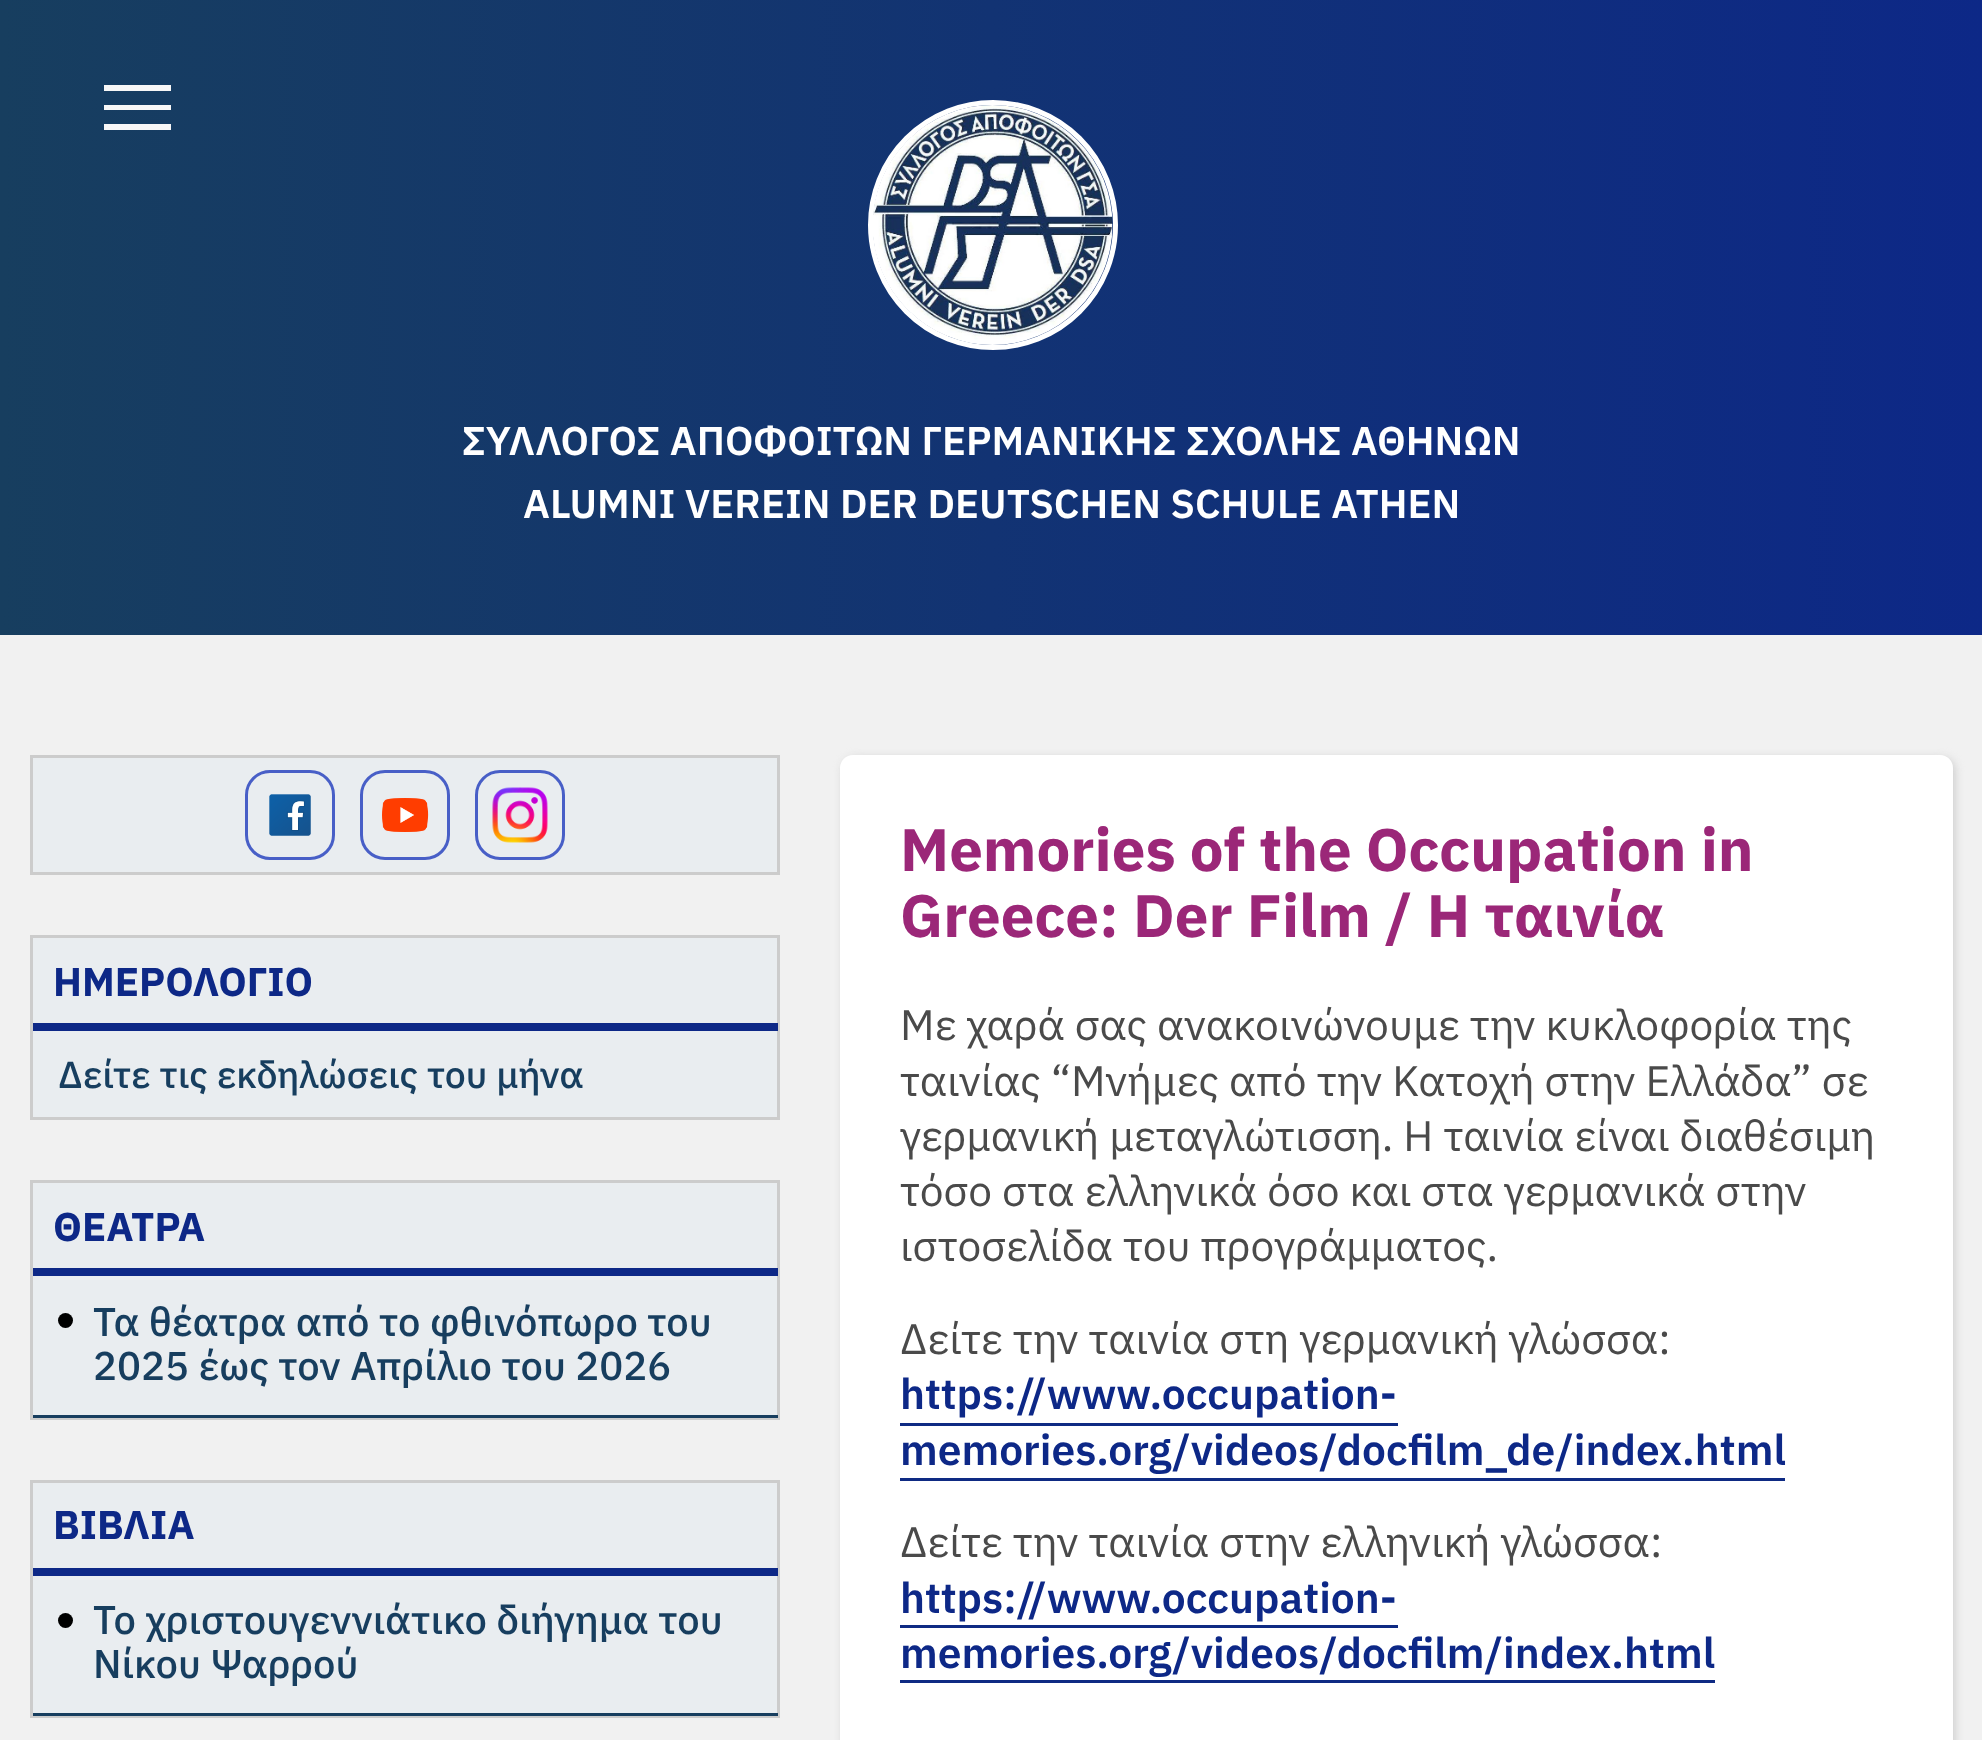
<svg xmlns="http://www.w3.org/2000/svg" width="1982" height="1740">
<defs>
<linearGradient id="g1" gradientUnits="userSpaceOnUse" x1="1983" y1="318" x2="0" y2="317"><stop offset="0" stop-color="#0d2887"/><stop offset="1" stop-color="#173e5f"/></linearGradient>
</defs>
<rect width="100%" height="100%" fill="#f1f1f1"/>
<rect width="1982" height="635" fill="url(#g1)"/>
<path d="M104 130v-6h67v6zm0-20v-5h67v5zm0-19v-6h67v6z" fill="#f7f7f7"/>
<circle cx="993" cy="225" r="122.5" fill="none" stroke="#fff" stroke-width="5"/>
<image x="873" y="105" width="240" height="240" href="media/1.png"/>
<text x="462" y="455" style="font-family:IBM Plex Sans;font-size:40px;font-weight:600;fill:#fff">ΣΥΛΛΟΓΟΣ ΑΠΟΦΟΙΤΩΝ ΓΕΡΜΑΝΙΚΗΣ ΣΧΟΛΗΣ ΑΘΗΝΩΝ</text>
<text x="523" y="518" style="font-family:IBM Plex Sans;font-size:40px;font-weight:600;fill:#fff">ALUMNI VEREIN DER DEUTSCHEN SCHULE ATHEN</text>
<rect x="31.5" y="756.5" width="747" height="117" fill="#e9edf0" stroke="#ccc" stroke-width="3"/>
<rect x="246.5" y="771.5" width="87" height="87" rx="23.5" fill="none" stroke="#485fc7" stroke-width="3"/>
<image x="269" y="794" width="42" height="42" href="media/2.png"/>
<rect x="361.5" y="771.5" width="87" height="87" rx="23.5" fill="none" stroke="#485fc7" stroke-width="3"/>
<image x="382" y="798" width="47" height="34" href="media/3.png"/>
<rect x="476.5" y="771.5" width="87" height="87" rx="23.5" fill="none" stroke="#485fc7" stroke-width="3"/>
<image x="492" y="787" width="56" height="56" href="media/4.png"/>
<rect x="31.5" y="936.5" width="747" height="182" fill="#e9edf0" stroke="#ccc" stroke-width="3"/>
<rect x="33" y="1023" width="745" height="8" fill="#0d2887"/>
<text x="53" y="996" style="font-family:IBM Plex Sans;font-size:40px;font-weight:bold;fill:#0d2887">ΗΜΕΡΟΛΟΓΙΟ</text>
<text x="58" y="1088" style="font-family:IBM Plex Sans;font-size:37.5px;font-weight:500;fill:#173e5f">Δείτε τις εκδηλώσεις του μήνα</text>
<rect x="33" y="1183" width="744" height="232" fill="#e9edf0"/>
<rect x="31.5" y="1181.5" width="747" height="237" fill="none" stroke="#ccc" stroke-width="3"/>
<rect x="33" y="1268" width="745" height="8" fill="#0d2887"/>
<text x="53" y="1241" style="font-family:IBM Plex Sans;font-size:40px;font-weight:bold;fill:#0d2887">ΘΕΑΤΡΑ</text>
<rect x="33" y="1415" width="745" height="3" fill="#173e5f"/>
<circle cx="65.5" cy="1320.5" r="7.5" fill="#000"/>
<text x="93" y="1336" style="font-family:IBM Plex Sans;font-size:40px;font-weight:500;fill:#173e5f">Τα θέατρα από το φθινόπωρο του</text>
<text x="93" y="1380" style="font-family:IBM Plex Sans;font-size:40px;font-weight:500;fill:#173e5f">2025 έως τον Απρίλιο του 2026</text>
<rect x="33" y="1483" width="744" height="230" fill="#e9edf0"/>
<rect x="31.5" y="1481.5" width="747" height="235" fill="none" stroke="#ccc" stroke-width="3"/>
<rect x="33" y="1568" width="745" height="8" fill="#0d2887"/>
<text x="53" y="1539" style="font-family:IBM Plex Sans;font-size:40px;font-weight:bold;fill:#0d2887">ΒΙΒΛΙΑ</text>
<rect x="33" y="1713" width="745" height="3" fill="#173e5f"/>
<circle cx="65.5" cy="1620.5" r="7.5" fill="#000"/>
<text x="93" y="1634" style="font-family:IBM Plex Sans;font-size:40px;font-weight:500;fill:#173e5f">Το χριστουγεννιάτικο διήγημα του</text>
<text x="93" y="1678" style="font-family:IBM Plex Sans;font-size:40px;font-weight:500;fill:#173e5f">Νίκου Ψαρρού</text>
<rect x="843" y="758" width="1112" height="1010" rx="13" fill="#ccc" filter="blur(5px)"/>
<rect x="840" y="755" width="1113" height="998" rx="13" fill="#fff"/>
<text x="900" y="871" style="font-family:IBM Plex Sans;font-size:60px;font-weight:bold;fill:#9b2778">Memories of the Occupation in</text>
<text x="900" y="937" style="font-family:IBM Plex Sans;font-size:60px;font-weight:bold;fill:#9b2778">Greece: Der Film / Η ταινία</text>
<text x="900" y="1040" style="font-family:IBM Plex Sans;font-size:42.5px;fill:#4a4a4a">Με χαρά σας ανακοινώνουμε την κυκλοφορία της</text>
<text x="900" y="1096" style="font-family:IBM Plex Sans;font-size:42.5px;fill:#4a4a4a">ταινίας “Μνήμες από την Κατοχή στην Ελλάδα” σε</text>
<text x="900" y="1151" style="font-family:IBM Plex Sans;font-size:42.5px;fill:#4a4a4a">γερμανική μεταγλώτισση. Η ταινία είναι διαθέσιμη</text>
<text x="900" y="1206" style="font-family:IBM Plex Sans;font-size:42.5px;fill:#4a4a4a">τόσο στα ελληνικά όσο και στα γερμανικά στην</text>
<text x="900" y="1261" style="font-family:IBM Plex Sans;font-size:42.5px;fill:#4a4a4a">ιστοσελίδα του προγράμματος.</text>
<text x="900" y="1354" style="font-family:IBM Plex Sans;font-size:42.5px;fill:#4a4a4a">Δείτε την ταινία στη γερμανική γλώσσα:</text>
<text x="900" y="1409" style="font-family:IBM Plex Sans;font-size:42.5px;font-weight:600;fill:#0d2887">https://www.occupation-</text>
<rect x="900" y="1423" width="498" height="3" fill="#0e2a83"/>
<text x="900" y="1465" style="font-family:IBM Plex Sans;font-size:42.5px;font-weight:600;fill:#0d2887">memories.org/videos/docfilm_de/index.html</text>
<rect x="900" y="1478" width="885" height="3" fill="#0e2a83"/>
<text x="900" y="1557" style="font-family:IBM Plex Sans;font-size:42.5px;fill:#4a4a4a">Δείτε την ταινία στην ελληνική γλώσσα:</text>
<text x="900" y="1613" style="font-family:IBM Plex Sans;font-size:42.5px;font-weight:600;fill:#0d2887">https://www.occupation-</text>
<rect x="900" y="1625" width="498" height="3" fill="#0e2a83"/>
<text x="900" y="1668" style="font-family:IBM Plex Sans;font-size:42.5px;font-weight:600;fill:#0d2887">memories.org/videos/docfilm/index.html</text>
<rect x="900" y="1680" width="815" height="3" fill="#0e2a83"/>
</svg>
